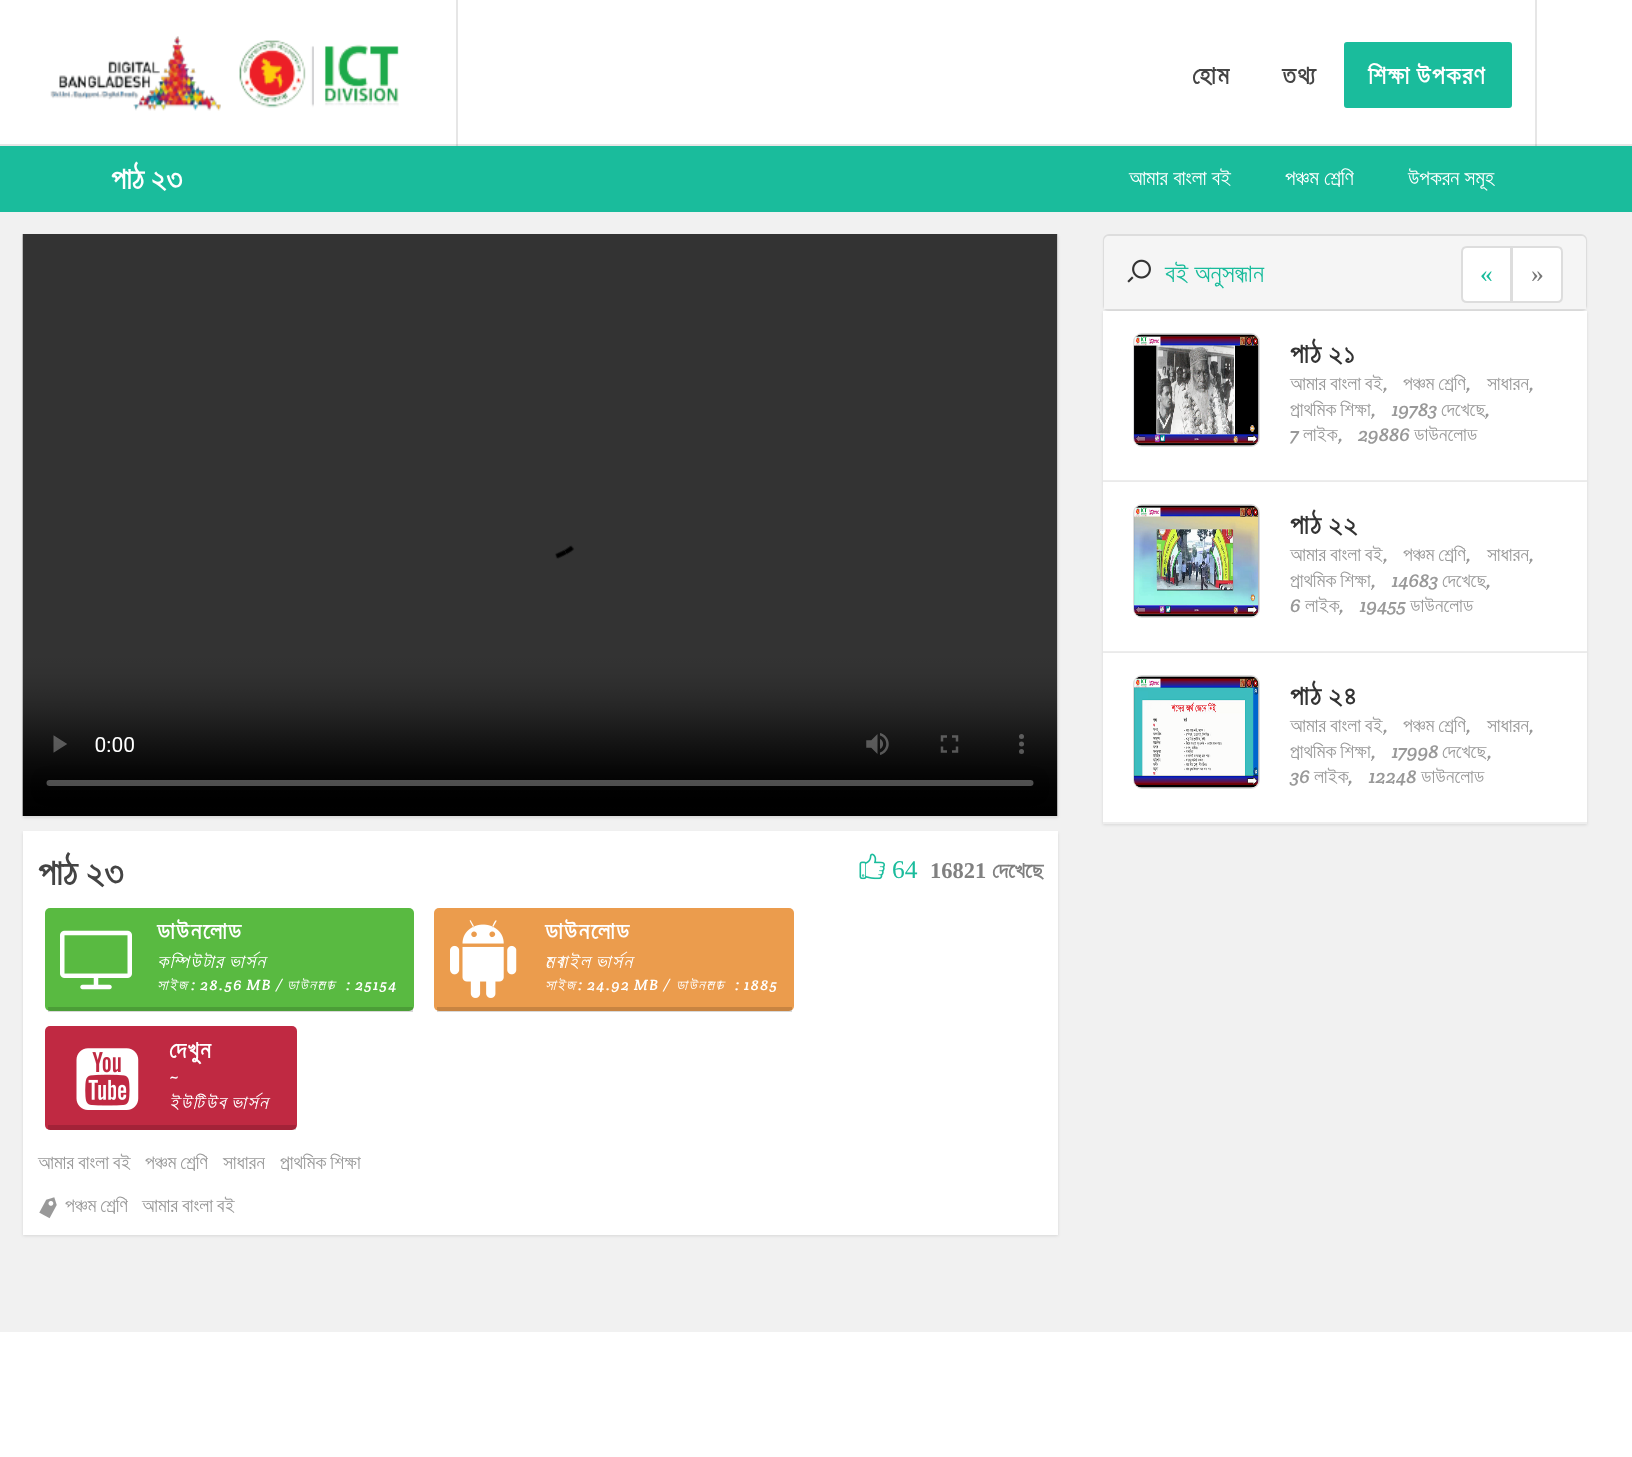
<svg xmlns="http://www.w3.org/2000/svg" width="1632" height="1457">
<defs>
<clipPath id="clip1"><rect x="1290" y="333" width="267" height="125"/></clipPath>
<clipPath id="clip2"><rect x="1290" y="504" width="267" height="125"/></clipPath>
<clipPath id="clip3"><rect x="1290" y="675" width="267" height="125"/></clipPath>
</defs>
<rect width="100%" height="100%" fill="#fff"/>
<rect x="456" width="2" height="146" fill="#e6e6e6"/>
<rect x="1535" width="2" height="146" fill="#e6e6e6"/>
<rect y="144" width="1632" height="2" fill="#e6e6e6"/>
<rect x="456" y="144" width="2" height="2" fill="#cfcfcf"/>
<rect x="1535" y="144" width="2" height="2" fill="#cfcfcf"/>
<image x="50" y="36" width="171" height="75" href="media/1.png"/>
<image x="239" y="40" width="160" height="68" href="media/2.png"/>
<text x="1192" y="84" style="font-family:FreeSans;font-size:25.5px;font-weight:bold;letter-spacing:1.5px;fill:#444">হোম</text>
<text x="1282" y="84" style="font-family:FreeSans;font-size:25.5px;font-weight:bold;letter-spacing:1.5px;fill:#444">তথ্য</text>
<rect x="1345" y="43" width="166" height="64" rx="2" fill="#1abc9c" stroke="#1abc9c" stroke-width="2"/>
<text x="1368" y="84" word-spacing="-2" style="font-family:FreeSans;font-size:25.5px;font-weight:bold;letter-spacing:1.5px;fill:#fff">শিক্ষা উপকরণ</text>
<rect y="146" width="1632" height="66" fill="#1abc9c"/>
<text x="111" y="189" style="font-family:FreeSans;font-size:30px;font-weight:bold;fill:#fff">পাঠ ২৩</text>
<text x="1129" y="185" style="font-family:FreeSans;font-size:21px;fill:#fff">আমার বাংলা বই</text>
<text x="1285" y="185" style="font-family:FreeSans;font-size:21px;fill:#fff">পঞ্চম শ্রেণি</text>
<text x="1408" y="185" style="font-family:FreeSans;font-size:21px;fill:#fff">উপকরন সমূহ</text>
<rect y="212" width="1632" height="1120" fill="#f1f1f1"/>
<rect x="1103" y="236" width="484" height="76" rx="6" fill="#0000000d" filter="blur(1px)"/>
<rect x="1104" y="235" width="482" height="75" rx="5" fill="none" stroke="#ddd" stroke-width="2"/>
<path d="M1109 236h472c3 0 5 2 5 5v68h-482v-68c0-3 2-5 5-5z" fill="#f5f5f5"/>
<image x="1127" y="259" width="24" height="24" href="media/3.png"/>
<text x="1165" y="282" style="font-family:FreeSans;font-size:25.5px;fill:#1abc9c">বই অনুসন্ধান</text>
<path d="M1467 247h44v55h-44c-3 0-5-2-5-5v-45c0-3 2-5 5-5z" fill="#fff" stroke="#ddd" stroke-width="2"/>
<text x="1480" y="282" style="font-family:Liberation Serif;font-size:25.5px;fill:#1abc9c">«</text>
<path d="M1512 247h45c3 0 5 2 5 5v45c0 3-2 5-5 5h-45z" fill="#fff" stroke="#ddd" stroke-width="2"/>
<text x="1531" y="282" style="font-family:Liberation Serif;font-size:25.5px;fill:#777">»</text>
<rect x="1103" y="312" width="484" height="171" fill="#0000001a" filter="blur(1.5px)"/>
<rect x="1103" y="311" width="484" height="169" fill="#fff"/>
<rect x="1103" y="480" width="484" height="2" fill="#eee"/>
<rect x="1134" y="334" width="125" height="112" rx="8" fill="none" stroke="#ddd" stroke-width="2"/>
<image x="1134" y="334" width="125" height="112" href="media/4.png"/>
<text x="1290" y="363" word-spacing="-2" style="font-family:FreeSans;font-size:27px;font-weight:bold;letter-spacing:1.5px;fill:#333">পাঠ ২১</text>
<text x="1290" y="390" word-spacing="-1" style="font-family:FreeSans;font-size:19.5px;fill:#999">আমার বাংলা বই</text>
<text x="1383" y="390" style="font-family:Crete Round;font-size:19.5px;font-style:italic;fill:#999">,</text>
<text x="1403" y="390" word-spacing="-1" style="font-family:FreeSans;font-size:19.5px;fill:#999">পঞ্চম শ্রেণি</text>
<text x="1466" y="390" style="font-family:Crete Round;font-size:19.5px;font-style:italic;fill:#999">,</text>
<text x="1487" y="390" style="font-family:FreeSans;font-size:19.5px;fill:#999">সাধারন</text>
<text x="1529" y="390" style="font-family:Crete Round;font-size:19.5px;font-style:italic;fill:#999">,</text>
<g clip-path="url(#clip1)">
<text x="1290" y="416" word-spacing="-1" style="font-family:FreeSans;font-size:19.5px;fill:#999">প্রাথমিক শিক্ষা</text>
</g>
<text x="1371" y="416" style="font-family:Crete Round;font-size:19.5px;font-style:italic;fill:#999">,</text>
<text x="1392" y="416" style="font-family:Crete Round;font-size:19.5px;font-style:italic;fill:#999">19783</text>
<text x="1441" y="416" style="font-family:FreeSans;font-size:19.5px;fill:#999">দেখেছে</text>
<text x="1485" y="416" style="font-family:Crete Round;font-size:19.5px;font-style:italic;fill:#999">,</text>
<text x="1290" y="441" style="font-family:Crete Round;font-size:19.5px;font-style:italic;fill:#999">7</text>
<text x="1303" y="441" style="font-family:FreeSans;font-size:19.5px;fill:#999">লাইক</text>
<text x="1338" y="441" style="font-family:Crete Round;font-size:19.5px;font-style:italic;fill:#999">,</text>
<text x="1358" y="441" style="font-family:Crete Round;font-size:19.5px;font-style:italic;fill:#999">29886</text>
<text x="1414" y="441" style="font-family:FreeSans;font-size:19.5px;fill:#999">ডাউনলোড</text>
<rect x="1103" y="483" width="484" height="171" fill="#0000001a" filter="blur(1.5px)"/>
<rect x="1103" y="482" width="484" height="169" fill="#fff"/>
<rect x="1103" y="651" width="484" height="2" fill="#eee"/>
<rect x="1134" y="505" width="125" height="112" rx="8" fill="none" stroke="#ddd" stroke-width="2"/>
<image x="1134" y="505" width="125" height="112" href="media/5.png"/>
<text x="1290" y="534" word-spacing="-2" style="font-family:FreeSans;font-size:27px;font-weight:bold;letter-spacing:1.5px;fill:#333">পাঠ ২২</text>
<text x="1290" y="561" word-spacing="-1" style="font-family:FreeSans;font-size:19.5px;fill:#999">আমার বাংলা বই</text>
<text x="1383" y="561" style="font-family:Crete Round;font-size:19.5px;font-style:italic;fill:#999">,</text>
<text x="1403" y="561" word-spacing="-1" style="font-family:FreeSans;font-size:19.5px;fill:#999">পঞ্চম শ্রেণি</text>
<text x="1466" y="561" style="font-family:Crete Round;font-size:19.5px;font-style:italic;fill:#999">,</text>
<text x="1487" y="561" style="font-family:FreeSans;font-size:19.5px;fill:#999">সাধারন</text>
<text x="1529" y="561" style="font-family:Crete Round;font-size:19.5px;font-style:italic;fill:#999">,</text>
<g clip-path="url(#clip2)">
<text x="1290" y="587" word-spacing="-1" style="font-family:FreeSans;font-size:19.5px;fill:#999">প্রাথমিক শিক্ষা</text>
</g>
<text x="1371" y="587" style="font-family:Crete Round;font-size:19.5px;font-style:italic;fill:#999">,</text>
<text x="1392" y="587" style="font-family:Crete Round;font-size:19.5px;font-style:italic;fill:#999">14683</text>
<text x="1442" y="587" style="font-family:FreeSans;font-size:19.5px;fill:#999">দেখেছে</text>
<text x="1486" y="587" style="font-family:Crete Round;font-size:19.5px;font-style:italic;fill:#999">,</text>
<text x="1290" y="612" style="font-family:Crete Round;font-size:19.5px;font-style:italic;fill:#999">6</text>
<text x="1305" y="612" style="font-family:FreeSans;font-size:19.5px;fill:#999">লাইক</text>
<text x="1339" y="612" style="font-family:Crete Round;font-size:19.5px;font-style:italic;fill:#999">,</text>
<text x="1360" y="612" style="font-family:Crete Round;font-size:19.5px;font-style:italic;fill:#999">19455</text>
<text x="1410" y="612" style="font-family:FreeSans;font-size:19.5px;fill:#999">ডাউনলোড</text>
<rect x="1103" y="654" width="484" height="171" fill="#0000001a" filter="blur(1.5px)"/>
<rect x="1103" y="653" width="484" height="169" fill="#fff"/>
<rect x="1103" y="822" width="484" height="2" fill="#eee"/>
<rect x="1134" y="676" width="125" height="112" rx="8" fill="none" stroke="#ddd" stroke-width="2"/>
<image x="1134" y="676" width="125" height="112" href="media/6.png"/>
<text x="1290" y="705" word-spacing="-2" style="font-family:FreeSans;font-size:27px;font-weight:bold;letter-spacing:1.5px;fill:#333">পাঠ ২৪</text>
<text x="1290" y="732" word-spacing="-1" style="font-family:FreeSans;font-size:19.5px;fill:#999">আমার বাংলা বই</text>
<text x="1383" y="732" style="font-family:Crete Round;font-size:19.5px;font-style:italic;fill:#999">,</text>
<text x="1403" y="732" word-spacing="-1" style="font-family:FreeSans;font-size:19.5px;fill:#999">পঞ্চম শ্রেণি</text>
<text x="1466" y="732" style="font-family:Crete Round;font-size:19.5px;font-style:italic;fill:#999">,</text>
<text x="1487" y="732" style="font-family:FreeSans;font-size:19.5px;fill:#999">সাধারন</text>
<text x="1529" y="732" style="font-family:Crete Round;font-size:19.5px;font-style:italic;fill:#999">,</text>
<g clip-path="url(#clip3)">
<text x="1290" y="758" word-spacing="-1" style="font-family:FreeSans;font-size:19.5px;fill:#999">প্রাথমিক শিক্ষা</text>
</g>
<text x="1371" y="758" style="font-family:Crete Round;font-size:19.5px;font-style:italic;fill:#999">,</text>
<text x="1392" y="758" style="font-family:Crete Round;font-size:19.5px;font-style:italic;fill:#999">17998</text>
<text x="1442" y="758" style="font-family:FreeSans;font-size:19.5px;fill:#999">দেখেছে</text>
<text x="1487" y="758" style="font-family:Crete Round;font-size:19.5px;font-style:italic;fill:#999">,</text>
<text x="1290" y="783" style="font-family:Crete Round;font-size:19.5px;font-style:italic;fill:#999">36</text>
<text x="1314" y="783" style="font-family:FreeSans;font-size:19.5px;fill:#999">লাইক</text>
<text x="1348" y="783" style="font-family:Crete Round;font-size:19.5px;font-style:italic;fill:#999">,</text>
<text x="1369" y="783" style="font-family:Crete Round;font-size:19.5px;font-style:italic;fill:#999">12248</text>
<text x="1421" y="783" style="font-family:FreeSans;font-size:19.5px;fill:#999">ডাউনলোড</text>
<rect x="23" y="236" width="1035" height="582" fill="#0000001a" filter="blur(1.5px)"/>
<rect x="1057" y="234" width="1" height="582" fill="#fff"/>
<image x="22" y="234" width="1036" height="582" href="media/7.png"/>
<rect x="23" y="833" width="1035" height="403" fill="#0000001a" filter="blur(1.5px)"/>
<rect x="23" y="831" width="1035" height="404" fill="#fff"/>
<text x="38" y="885" style="font-family:FreeSans;font-size:36px;font-weight:bold;fill:#444">পাঠ ২৩</text>
<image x="859" y="853" width="26" height="27" href="media/8.png"/>
<text x="892" y="878" style="font-family:Liberation Serif;font-size:25.5px;fill:#1abc9c">64</text>
<text x="930" y="878" style="font-family:Liberation Serif;font-size:22.5px;font-weight:bold;fill:#808080">16821</text>
<text x="992" y="878" style="font-family:FreeSans;font-size:22.5px;font-weight:bold;fill:#808080">দেখেছে</text>
<rect x="45" y="908" width="369" height="103" rx="5" fill="#59ba41"/>
<rect x="48" y="1007" width="365" height="5" fill="#00000026"/>
<image x="60" y="930" width="72" height="60" href="media/9.png"/>
<text x="157" y="939" style="font-family:FreeSans;font-size:24px;font-weight:bold;letter-spacing:1.5px;fill:#fff">ডাউনলোড</text>
<text x="157" y="968" word-spacing="-2" style="font-family:FreeSans;font-size:19.5px;font-style:italic;letter-spacing:1.5px;fill:#fff">কম্পিউটার ভার্সন</text>
<text x="157" y="990" style="font-family:FreeSans;font-size:15px;font-style:italic;letter-spacing:1.5px;fill:#fff">সাইজ</text>
<text x="191" y="990" word-spacing="-1" style="font-family:Crete Round;font-size:15px;font-style:italic;letter-spacing:1.5px;fill:#fff">: 28.56 MB /</text>
<text x="287" y="990" style="font-family:FreeSans;font-size:15px;font-style:italic;letter-spacing:1.5px;fill:#fff">ডাউনলোড</text>
<text x="346" y="990" word-spacing="-1" style="font-family:Crete Round;font-size:15px;font-style:italic;letter-spacing:1.5px;fill:#fff">: 25154</text>
<rect x="434" y="908" width="360" height="103" rx="5" fill="#eb9c4d"/>
<rect x="437" y="1007" width="355" height="5" fill="#00000026"/>
<image x="450" y="920" width="67" height="78" href="media/10.png"/>
<text x="545" y="939" style="font-family:FreeSans;font-size:24px;font-weight:bold;letter-spacing:1.5px;fill:#fff">ডাউনলোড</text>
<text x="545" y="968" word-spacing="-2" style="font-family:FreeSans;font-size:19.5px;font-style:italic;letter-spacing:1.5px;fill:#fff">মোবাইল ভার্সন</text>
<text x="545" y="990" style="font-family:FreeSans;font-size:15px;font-style:italic;letter-spacing:1.5px;fill:#fff">সাইজ</text>
<text x="578" y="990" word-spacing="-1" style="font-family:Crete Round;font-size:15px;font-style:italic;letter-spacing:1.5px;fill:#fff">: 24.92 MB /</text>
<text x="676" y="990" style="font-family:FreeSans;font-size:15px;font-style:italic;letter-spacing:1.5px;fill:#fff">ডাউনলোড</text>
<text x="735" y="990" word-spacing="-1" style="font-family:Crete Round;font-size:15px;font-style:italic;letter-spacing:1.5px;fill:#fff">: 1885</text>
<rect x="45" y="1026" width="252" height="104" rx="5" fill="#c02942"/>
<rect x="48" y="1125" width="248" height="5" fill="#00000026"/>
<image x="76" y="1048" width="63" height="62" href="media/11.png"/>
<text x="169" y="1058" style="font-family:FreeSans;font-size:24px;font-weight:bold;letter-spacing:1.5px;fill:#fff">দেখুন</text>
<text x="169" y="1082" style="font-family:Crete Round;font-size:15px;font-style:italic;letter-spacing:1.5px;fill:#fff">~</text>
<text x="169" y="1109" word-spacing="-2" style="font-family:FreeSans;font-size:19.5px;font-style:italic;letter-spacing:1.5px;fill:#fff">ইউটিউব ভার্সন</text>
<text x="38" y="1169" word-spacing="-1" style="font-family:FreeSans;font-size:19.5px;fill:#999">আমার বাংলা বই</text>
<text x="145" y="1169" word-spacing="-1" style="font-family:FreeSans;font-size:19.5px;fill:#999">পঞ্চম শ্রেণি</text>
<text x="223" y="1169" style="font-family:FreeSans;font-size:19.5px;fill:#999">সাধারন</text>
<text x="280" y="1169" word-spacing="-1" style="font-family:FreeSans;font-size:19.5px;fill:#999">প্রাথমিক শিক্ষা</text>
<image x="39" y="1197" width="18" height="22" href="media/12.png"/>
<text x="65" y="1212" word-spacing="-1" style="font-family:FreeSans;font-size:19.5px;fill:#999">পঞ্চম শ্রেণি</text>
<text x="142" y="1212" word-spacing="-1" style="font-family:FreeSans;font-size:19.5px;fill:#999">আমার বাংলা বই</text>
</svg>
